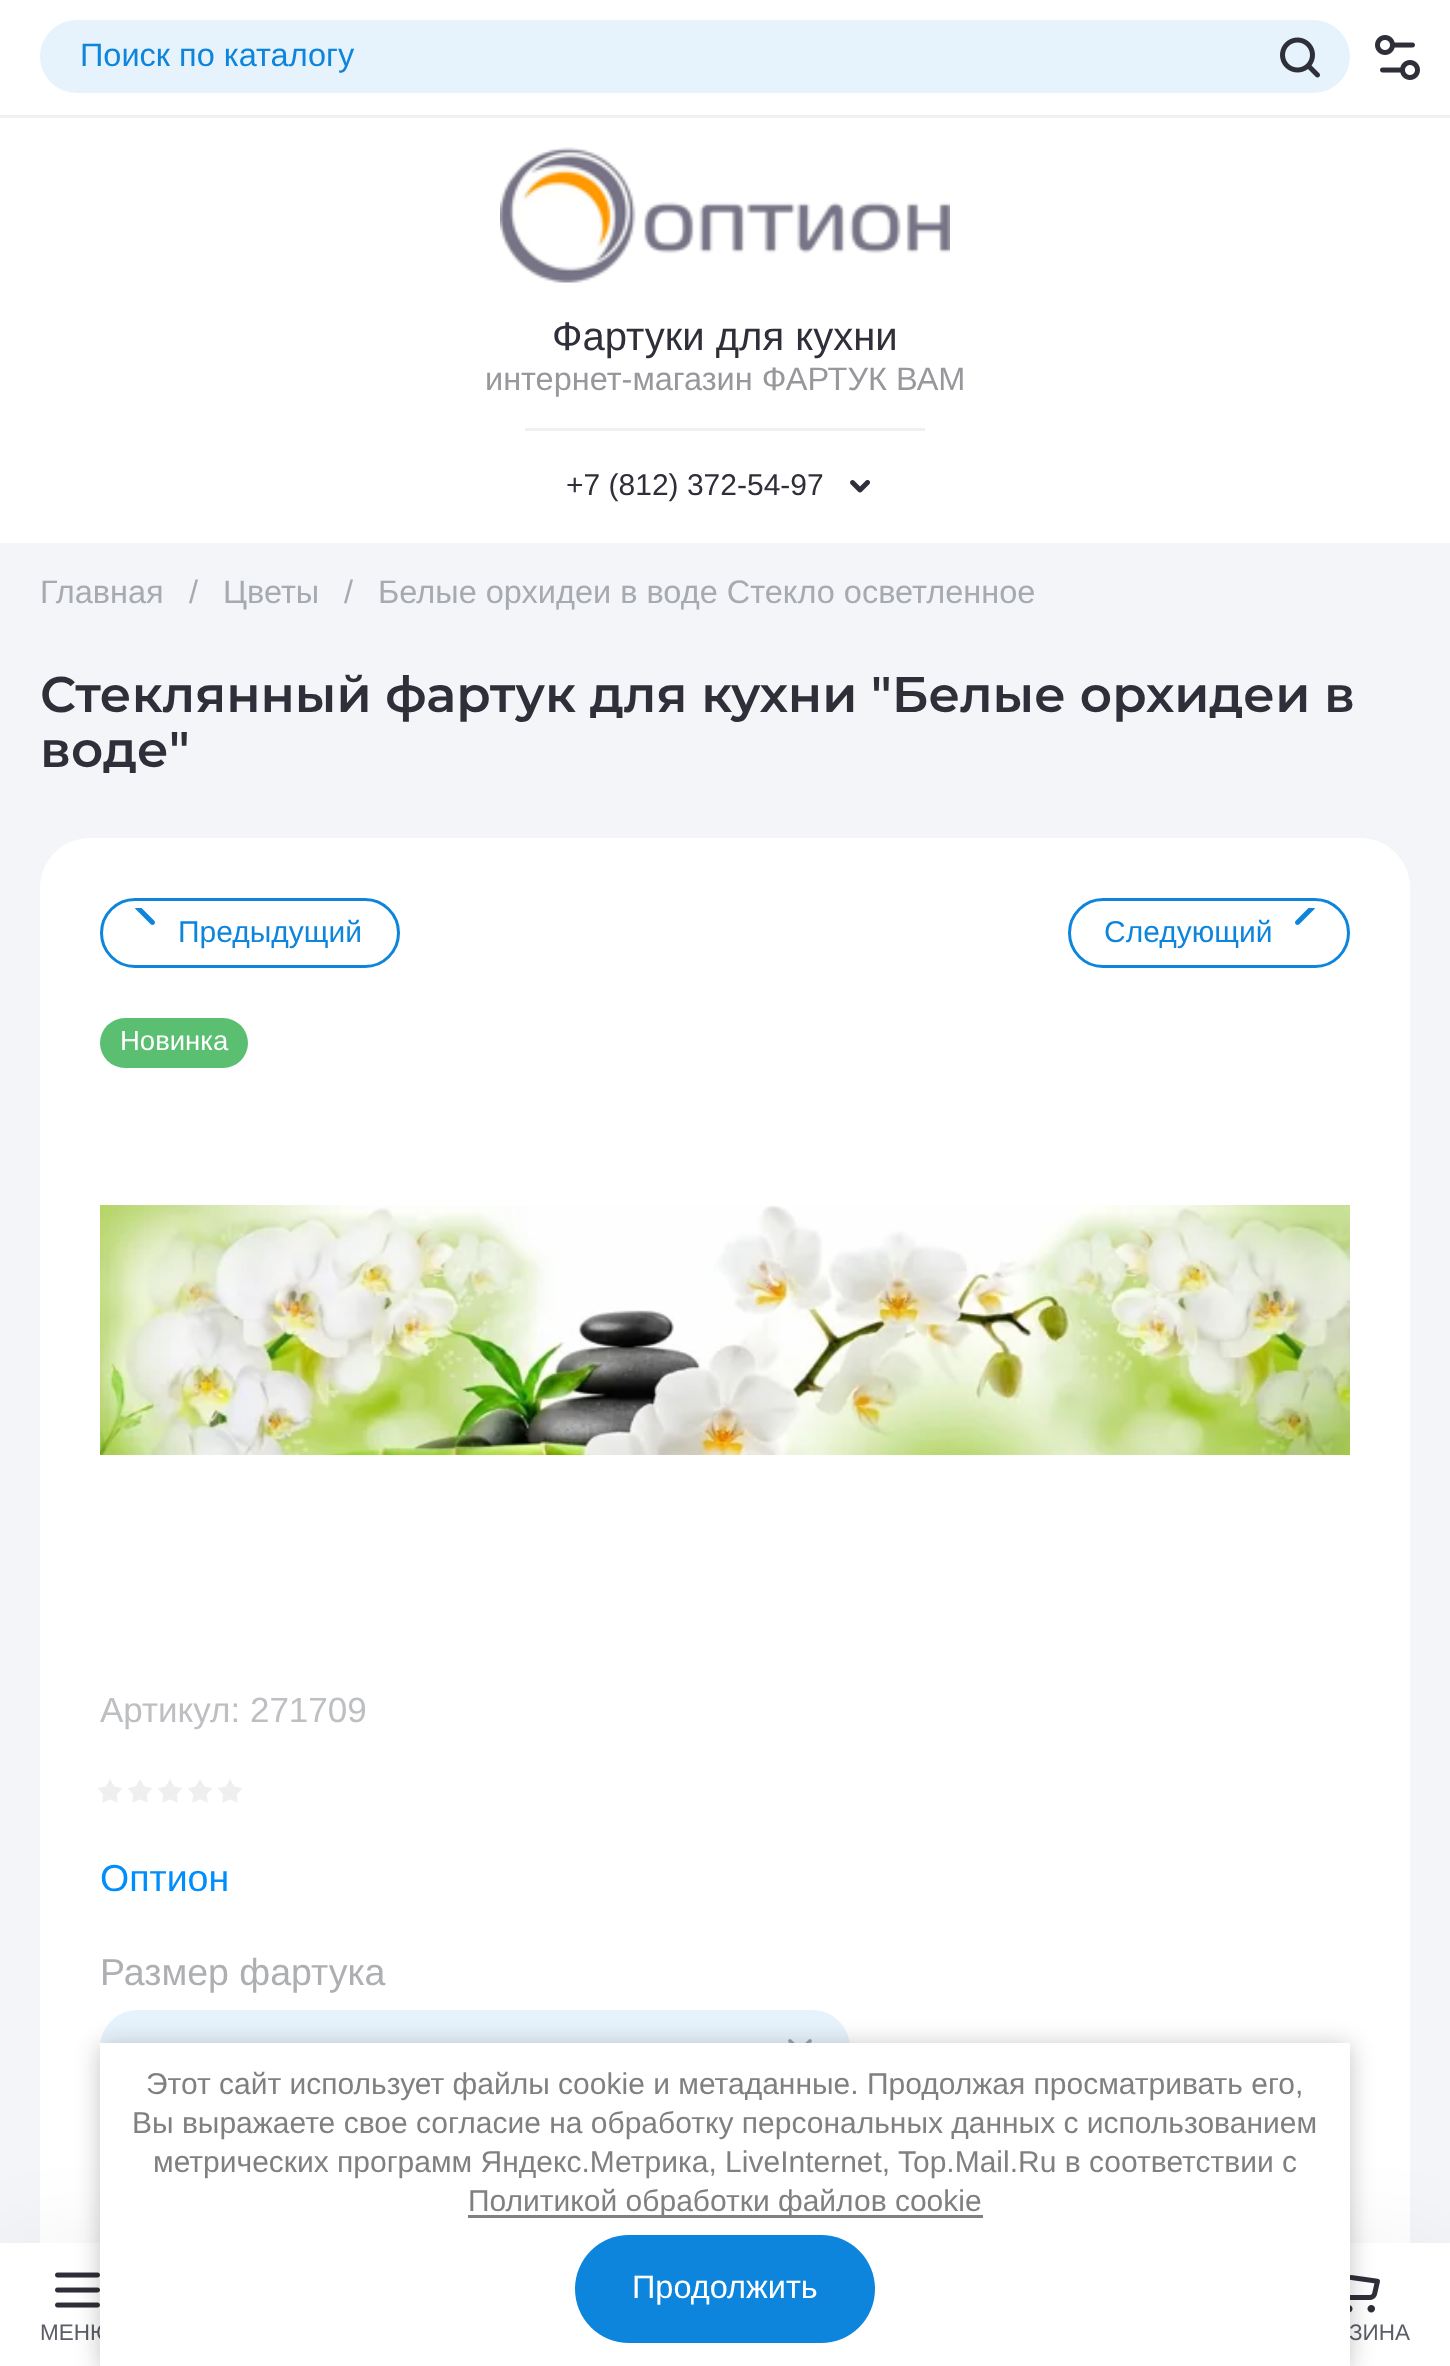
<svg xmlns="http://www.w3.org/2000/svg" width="1450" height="2366">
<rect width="100%" height="100%" fill="#f3f5f9"/>
<rect width="1450" height="543" fill="#fff"/>
<rect y="115" width="1450" height="3" fill="#eff0f4"/>
<rect x="40" y="20" width="1310" height="73" rx="36.5" fill="#e7f3fc"/>
<text x="80" y="66" style="font-family:Liberation Sans;font-size:32.5px;fill:#0d85dc">Поиск по каталогу</text>
<image x="1280" y="37" width="40" height="41" href="media/1.png"/>
<image x="1375" y="35" width="45" height="45" href="media/2.png"/>
<image x="500" y="147" width="450" height="136" href="media/3.png"/>
<text x="552" y="350" style="font-family:Liberation Sans;font-size:40px;fill:#2e2f38">Фартуки для кухни</text>
<text x="485" y="390" style="font-family:Liberation Sans;font-size:32.5px;fill:#97979c">интернет-магазин ФАРТУК ВАМ</text>
<rect x="525" y="428" width="400" height="3" fill="#eff0f4"/>
<text x="566" y="495" style="font-family:Liberation Sans;font-size:30px;fill:#2e2f38">+7 (812) 372-54-97</text>
<image x="850" y="480" width="20" height="13" href="media/4.png"/>
<text x="40" y="603" style="font-family:Liberation Sans;font-size:32.5px;fill:#a7aab0">Главная</text>
<text x="189" y="603" style="font-family:Liberation Sans;font-size:32.5px;fill:#a7aab0">/</text>
<text x="223" y="603" style="font-family:Liberation Sans;font-size:32.5px;fill:#a7aab0">Цветы</text>
<text x="344" y="603" style="font-family:Liberation Sans;font-size:32.5px;fill:#a7aab0">/</text>
<text x="378" y="603" style="font-family:Liberation Sans;font-size:32.5px;fill:#a7aab0">Белые орхидеи в воде Стекло осветленное</text>
<text x="40" y="712" style="font-family:Montserrat;font-size:50px;font-weight:600;fill:#2e2f38">Стеклянный фартук для кухни "Белые орхидеи в</text>
<text x="40" y="767" style="font-family:Montserrat;font-size:50px;font-weight:600;fill:#2e2f38">воде"</text>
<rect x="40" y="838" width="1370" height="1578" rx="50" fill="#fff"/>
<rect x="101.5" y="899.5" width="297" height="67" rx="33.5" fill="none" stroke="#0d85dc" stroke-width="3"/>
<image x="135" y="908" width="20" height="17" href="media/5.png"/>
<text x="178" y="942" style="font-family:Liberation Sans;font-size:30px;fill:#0d85dc">Предыдущий</text>
<rect x="1069.5" y="899.5" width="279" height="67" rx="33.5" fill="none" stroke="#0d85dc" stroke-width="3"/>
<image x="1295" y="908" width="20" height="17" href="media/6.png"/>
<text x="1104" y="942" style="font-family:Liberation Sans;font-size:30px;fill:#0d85dc">Следующий</text>
<rect x="100" y="1018" width="148" height="50" rx="25" fill="#5abf70"/>
<text x="120" y="1050" style="font-family:Liberation Sans;font-size:27.5px;fill:#fff">Новинка</text>
<image x="100" y="1205" width="1250" height="250" href="media/7.png"/>
<text x="100" y="1722" style="font-family:Liberation Sans;font-size:35px;fill:#bdbfc2">Артикул: 271709</text>
<image x="98" y="1779" width="144" height="24" href="media/8.png"/>
<text x="100" y="1891" style="font-family:Liberation Sans;font-size:37.5px;fill:#008efc">Оптион</text>
<text x="100" y="1985" style="font-family:Liberation Sans;font-size:37.5px;fill:#adafb3">Размер фартука</text>
<rect x="100" y="2010" width="750" height="75" rx="37.5" fill="#e7f3fc"/>
<image x="788" y="2039" width="24" height="4" href="media/9.png"/>
<rect y="2253" width="1450" height="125" fill="#0000000f" filter="blur(50px)"/>
<rect y="2243" width="1450" height="123" fill="#fff"/>
<image x="55" y="2272" width="45" height="36" href="media/10.png"/>
<text x="40" y="2340" style="font-family:Liberation Sans;font-size:22.5px;fill:#5a5e67">МЕНЮ</text>
<image x="1350" y="2275" width="30" height="38" href="media/11.png"/>
<text x="1349" y="2340" style="font-family:Liberation Sans;font-size:22.5px;fill:#5a5e67">ЗИНА</text>
<rect x="100" y="2045" width="1250" height="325" fill="#0000003b" filter="blur(12.5px)"/>
<rect x="100" y="2043" width="1250" height="323" fill="#fff"/>
<text x="146" y="2094" style="font-family:Liberation Sans;font-size:30px;fill:#808080">Этот сайт использует файлы cookie и метаданные. Продолжая просматривать его,</text>
<text x="132" y="2133" style="font-family:Liberation Sans;font-size:30px;fill:#808080">Вы выражаете свое согласие на обработку персональных данных с использованием</text>
<text x="153" y="2172" style="font-family:Liberation Sans;font-size:30px;fill:#808080">метрических программ Яндекс.Метрика, LiveInternet, Top.Mail.Ru в соответствии с</text>
<rect x="468" y="2215" width="515" height="3" fill="#808080"/>
<text x="468" y="2211" style="font-family:Liberation Sans;font-size:30px;fill:#808080">Политикой обработки файлов cookie</text>
<rect x="575" y="2235" width="300" height="108" rx="54" fill="#0d85dc"/>
<text x="632" y="2298" style="font-family:Liberation Sans;font-size:32.5px;fill:#fff">Продолжить</text>
</svg>
